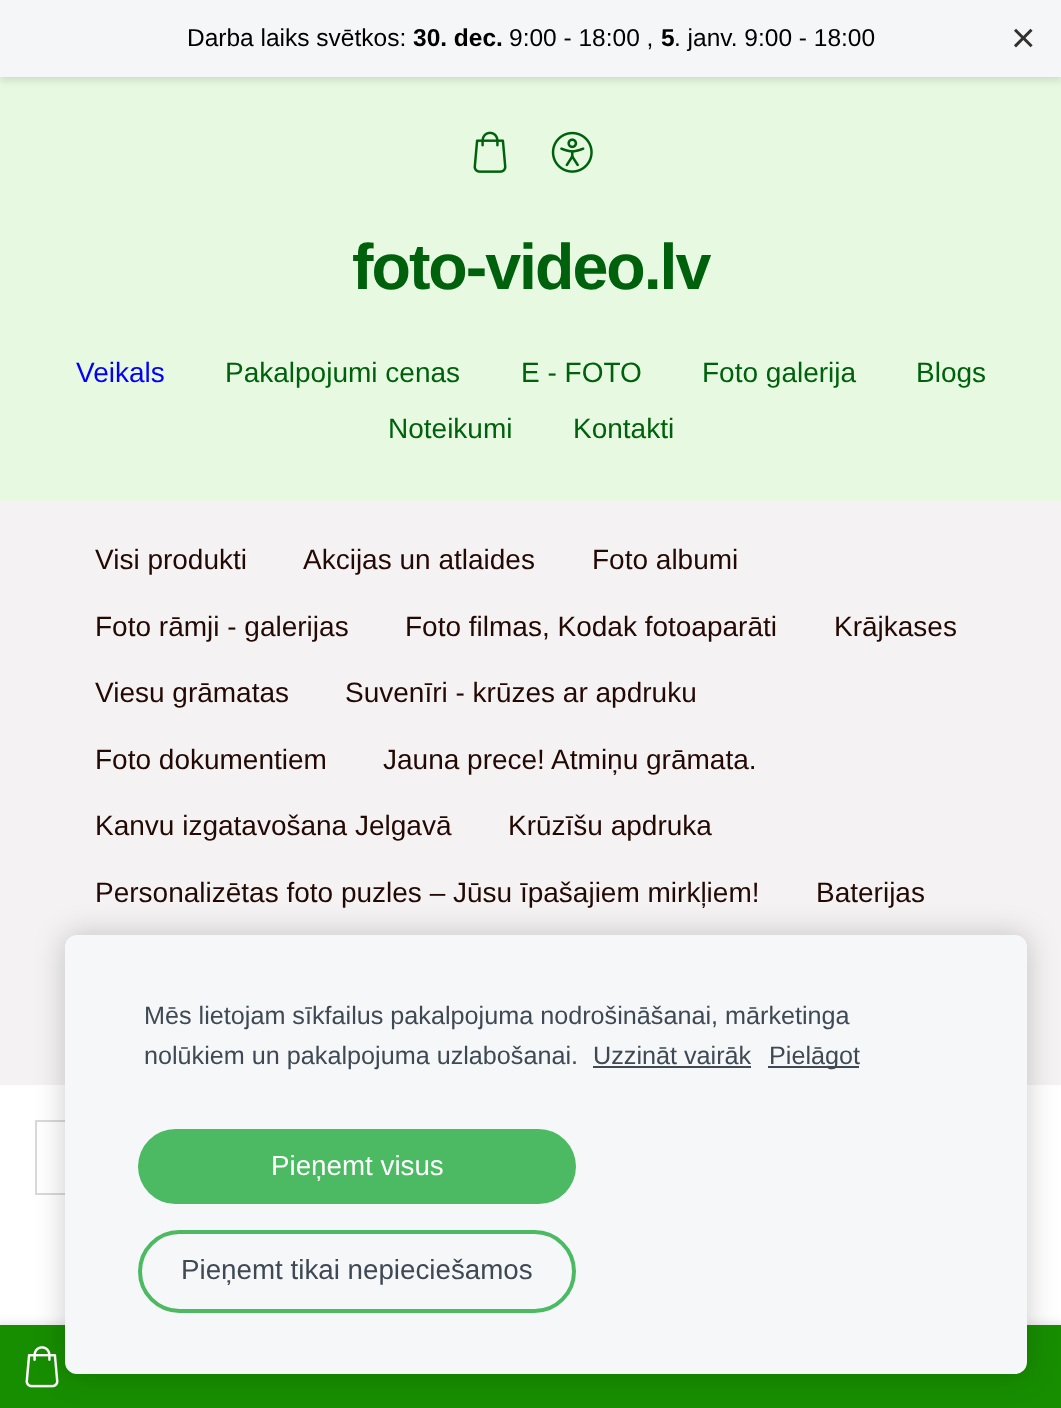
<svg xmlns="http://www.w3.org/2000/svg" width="1061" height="1408">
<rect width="100%" height="100%" fill="#fff"/>
<rect y="77" width="1061" height="424" fill="#e7f9e1"/>
<rect y="4" width="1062" height="77" fill="#0000001a" filter="blur(3.5px)"/>
<rect width="1061" height="77" fill="#f5f6f8"/>
<text x="187" y="46" style="font-family:Liberation Sans;font-size:24.5px;fill:#000">Darba laiks svētkos:</text>
<text x="413" y="46" style="font-family:Liberation Sans;font-size:24.5px;font-weight:bold;fill:#000">30. dec.</text>
<text x="509" y="46" style="font-family:Liberation Sans;font-size:24.5px;fill:#000">9:00 - 18:00 ,</text>
<text x="661" y="46" style="font-family:Liberation Sans;font-size:24.5px;font-weight:bold;fill:#000">5</text>
<text x="674" y="46" style="font-family:Liberation Sans;font-size:24.5px;fill:#000">. janv. 9:00 - 18:00</text>
<text x="1011" y="52" style="font-family:Liberation Sans;font-size:42px;fill:#313132">×</text>
<text x="352" y="289" style="font-family:Liberation Sans;font-size:64.5px;font-weight:bold;letter-spacing:-2px;fill:#00610d">foto-video.lv</text>
<text x="76" y="382" style="font-family:Liberation Sans;font-size:28px;fill:#0300f7">Veikals</text>
<text x="225" y="382" style="font-family:Liberation Sans;font-size:28px;fill:#00610d">Pakalpojumi cenas</text>
<text x="521" y="382" style="font-family:Liberation Sans;font-size:28px;fill:#00610d">E - FOTO</text>
<text x="702" y="382" style="font-family:Liberation Sans;font-size:28px;fill:#00610d">Foto galerija</text>
<text x="916" y="382" style="font-family:Liberation Sans;font-size:28px;fill:#00610d">Blogs</text>
<text x="388" y="438" style="font-family:Liberation Sans;font-size:28px;fill:#00610d">Noteikumi</text>
<text x="573" y="438" style="font-family:Liberation Sans;font-size:28px;fill:#00610d">Kontakti</text>
<image x="473" y="131" width="34" height="42" href="media/1.png"/>
<image x="551" y="131" width="42" height="42" href="media/2.png"/>
<rect y="501" width="1061" height="584" fill="#f4f2f3"/>
<text x="95" y="569" style="font-family:Liberation Sans;font-size:28px;fill:#230903">Visi produkti</text>
<text x="303" y="569" style="font-family:Liberation Sans;font-size:28px;fill:#230903">Akcijas un atlaides</text>
<text x="592" y="569" style="font-family:Liberation Sans;font-size:28px;fill:#230903">Foto albumi</text>
<text x="95" y="636" style="font-family:Liberation Sans;font-size:28px;fill:#230903">Foto rāmji - galerijas</text>
<text x="405" y="636" style="font-family:Liberation Sans;font-size:28px;fill:#230903">Foto filmas, Kodak fotoaparāti</text>
<text x="834" y="636" style="font-family:Liberation Sans;font-size:28px;fill:#230903">Krājkases</text>
<text x="95" y="702" style="font-family:Liberation Sans;font-size:28px;fill:#230903">Viesu grāmatas</text>
<text x="345" y="702" style="font-family:Liberation Sans;font-size:28px;fill:#230903">Suvenīri - krūzes ar apdruku</text>
<text x="95" y="769" style="font-family:Liberation Sans;font-size:28px;fill:#230903">Foto dokumentiem</text>
<text x="383" y="769" style="font-family:Liberation Sans;font-size:28px;fill:#230903">Jauna prece! Atmiņu grāmata.</text>
<text x="95" y="835" style="font-family:Liberation Sans;font-size:28px;fill:#230903">Kanvu izgatavošana Jelgavā</text>
<text x="508" y="835" style="font-family:Liberation Sans;font-size:28px;fill:#230903">Krūzīšu apdruka</text>
<text x="95" y="902" style="font-family:Liberation Sans;font-size:28px;fill:#230903">Personalizētas foto puzles – Jūsu īpašajiem mirkļiem!</text>
<text x="816" y="902" style="font-family:Liberation Sans;font-size:28px;fill:#230903">Baterijas</text>
<rect x="36" y="1121" width="990" height="73" fill="none" stroke="#d9d9d9" stroke-width="2"/>
<rect x="-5" y="1323" width="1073" height="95" fill="#0000001a" filter="blur(4.5px)"/>
<rect y="1325" width="1061" height="83" fill="#178e00"/>
<image x="25" y="1346" width="34" height="42" href="media/3.png"/>
<rect x="65" y="935" width="962" height="439" rx="12" fill="#00000033" filter="blur(15px)"/>
<rect x="65" y="935" width="962" height="439" rx="12" fill="#f6f7f9"/>
<text x="144" y="1024" style="font-family:Liberation Sans;font-size:25.2px;fill:#3f4954">Mēs lietojam sīkfailus pakalpojuma nodrošināšanai, mārketinga</text>
<text x="144" y="1064" style="font-family:Liberation Sans;font-size:25.2px;fill:#3f4954">nolūkiem un pakalpojuma uzlabošanai.</text>
<text x="593" y="1064" style="font-family:Liberation Sans;font-size:25.2px;fill:#3f4954">Uzzināt vairāk</text>
<rect x="593" y="1066" width="158" height="2" fill="#3f4954"/>
<rect x="768" y="1066" width="91" height="2" fill="#3f4954"/>
<text x="769" y="1064" style="font-family:Liberation Sans;font-size:25.2px;fill:#3f4954">Pielāgot</text>
<rect x="138" y="1129" width="438" height="75" rx="37.5" fill="#4cb963"/>
<text x="271" y="1175" style="font-family:Liberation Sans;font-size:27.75px;fill:#fff">Pieņemt visus</text>
<rect x="140" y="1232" width="434" height="79" rx="39.5" fill="none" stroke="#4cb963" stroke-width="4"/>
<text x="181" y="1279" style="font-family:Liberation Sans;font-size:27.75px;fill:#3f4954">Pieņemt tikai nepieciešamos</text>
</svg>
